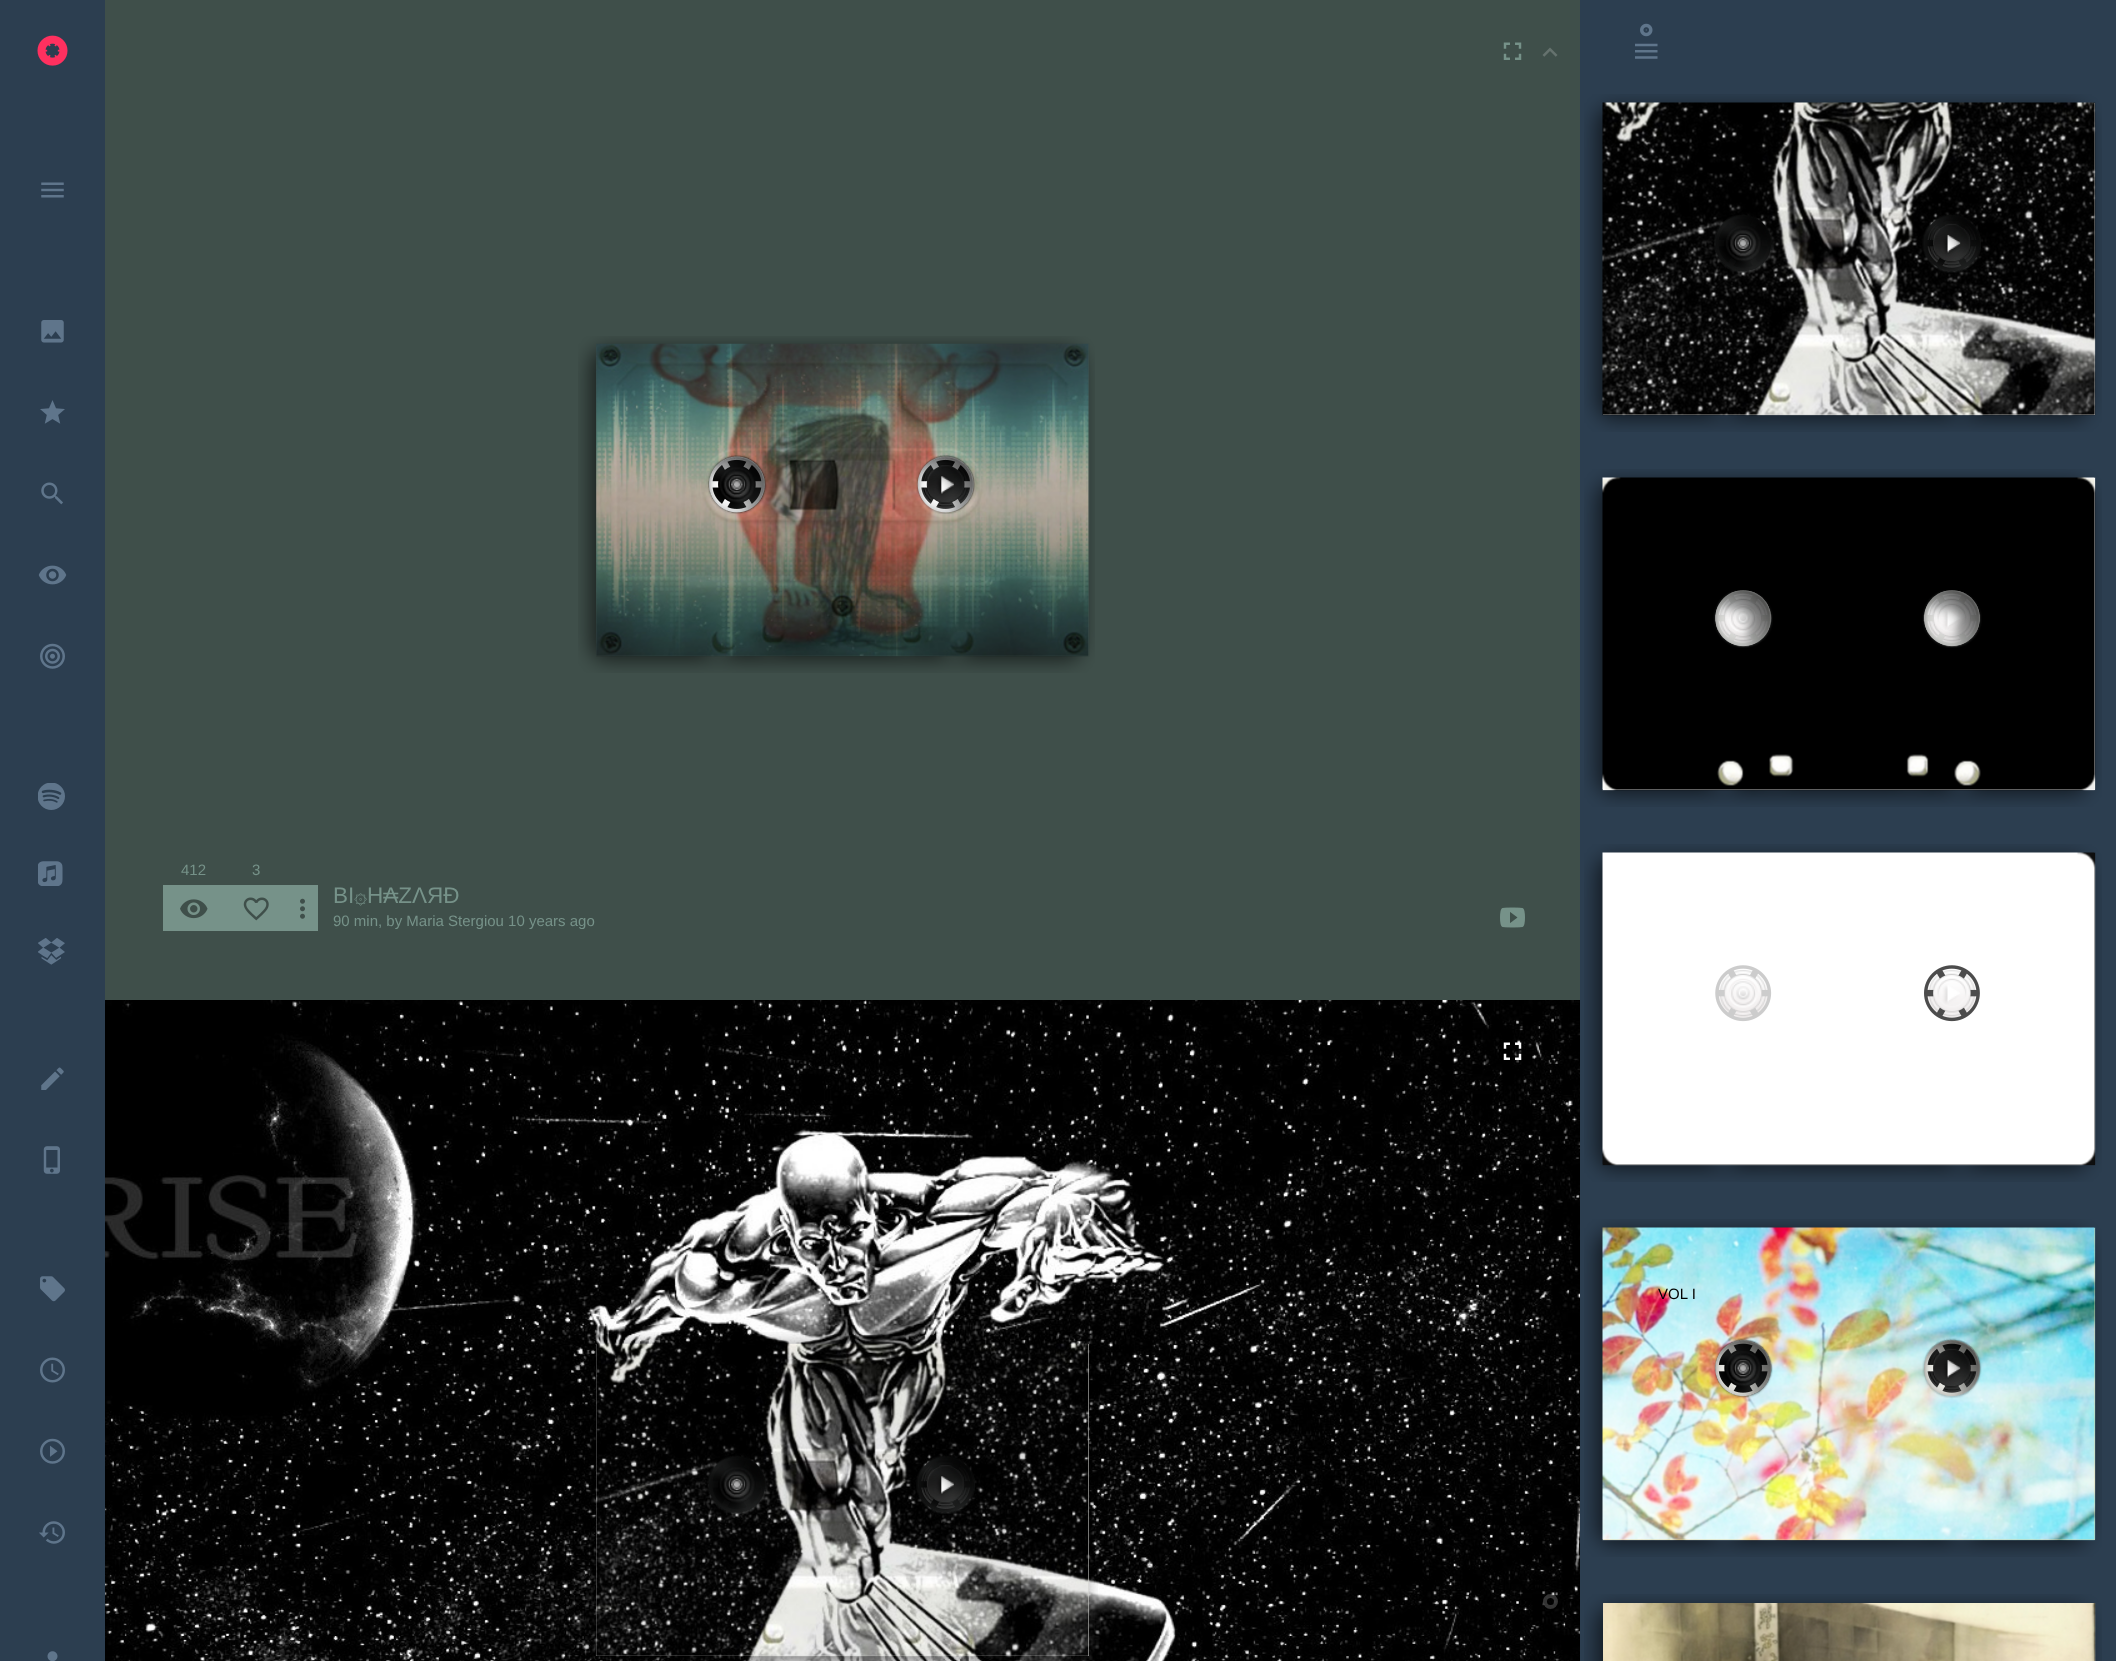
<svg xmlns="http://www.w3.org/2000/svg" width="2116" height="1661">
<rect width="100%" height="100%" fill="#2c3e50"/>
<image x="37" y="35" width="31" height="31" href="media/1.png"/>
<image x="41" y="182" width="23" height="16" href="media/2.png"/>
<image x="41" y="320" width="23" height="23" href="media/3.png"/>
<image x="40" y="400" width="25" height="24" href="media/4.png"/>
<image x="41" y="482" width="22" height="23" href="media/5.png"/>
<image x="38" y="565" width="29" height="20" href="media/6.png"/>
<image x="40" y="643" width="25" height="26" href="media/7.png"/>
<image x="38" y="783" width="27" height="27" href="media/8.png"/>
<image x="38" y="861" width="25" height="25" href="media/9.png"/>
<image x="38" y="938" width="27" height="27" href="media/10.png"/>
<image x="41" y="1067" width="23" height="23" href="media/11.png"/>
<image x="43" y="1146" width="17" height="28" href="media/12.png"/>
<image x="40" y="1276" width="25" height="26" href="media/13.png"/>
<image x="40" y="1357" width="25" height="26" href="media/14.png"/>
<image x="40" y="1438" width="25" height="26" href="media/15.png"/>
<image x="39" y="1521" width="26" height="23" href="media/16.png"/>
<image x="47" y="1651" width="11" height="10" href="media/17.png"/>
<rect x="105" width="1475" height="1000" fill="#3f4f4a"/>
<image x="1542" y="47" width="16" height="10" href="media/18.png"/>
<image x="578" y="336" width="517" height="337" href="media/19.png"/>
<rect x="596" y="344" width="493" height="312" fill="#3f4f4a"/>
<image x="596" y="343" width="494" height="314" href="media/20.png"/>
<image x="708" y="457" width="58" height="56" href="media/23.png"/>
<image x="709" y="456" width="56" height="57" href="media/22.png"/>
<image x="708" y="454" width="59" height="60" href="media/21.png"/>
<image x="918" y="457" width="52" height="52" href="media/26.png"/>
<image x="917" y="456" width="57" height="57" href="media/25.png"/>
<image x="916" y="455" width="59" height="59" href="media/24.png"/>
<image x="1503" y="42" width="19" height="18" href="media/27.png"/>
<text x="181" y="875" style="font-family:Liberation Sans;font-size:15px;fill:#769289">412</text>
<rect x="163" y="885" width="155" height="45" fill="#769289"/>
<image x="180" y="899" width="28" height="20" href="media/28.png"/>
<text x="252" y="875" style="font-family:Liberation Sans;font-size:15px;fill:#769289">3</text>
<image x="243" y="897" width="26" height="24" href="media/29.png"/>
<image x="300" y="898" width="5" height="21" href="media/30.png"/>
<text x="333" y="903" style="font-family:Liberation Sans;font-size:22.5px;fill:#769289">BI</text>
<text x="354" y="903" style="font-family:Cascadia Code;font-size:22.5px;fill:#769289">۞</text>
<text x="367" y="903" style="font-family:Liberation Sans;font-size:22.5px;fill:#769289">H₳ZΛЯƉ</text>
<text x="333" y="926" style="font-family:Liberation Sans;font-size:15px;fill:#769289">90 min, by Maria Stergiou 10 years ago</text>
<image x="1500" y="907" width="25" height="21" href="media/31.png"/>
<rect x="163" y="930" width="155" height="1" fill="#769289"/>
<image x="105" y="1000" width="1475" height="661" href="media/32.png"/>
<image x="1503" y="1042" width="19" height="18" href="media/33.png"/>
<image x="575" y="1332" width="523" height="329" href="media/34.png"/>
<rect x="596" y="1344" width="493" height="312" fill="#cfcfcc"/>
<image x="596" y="1343" width="494" height="314" href="media/35.png"/>
<image x="709" y="1457" width="56" height="56" href="media/38.png"/>
<image x="709" y="1456" width="56" height="57" href="media/37.png"/>
<image x="707" y="1456" width="59" height="58" href="media/36.png"/>
<image x="918" y="1457" width="52" height="52" href="media/41.png"/>
<image x="919" y="1456" width="54" height="57" href="media/40.png"/>
<image x="916" y="1456" width="59" height="58" href="media/39.png"/>
<circle cx="1550.5" cy="1601.5" r="5.5" fill="none" stroke="#fffeff33" stroke-width="4"/>
<image x="1640" y="23" width="13" height="14" href="media/42.png"/>
<image x="1635" y="43" width="23" height="16" href="media/43.png"/>
<image x="1584" y="94" width="518" height="338" href="media/44.png"/>
<rect x="1603" y="103" width="492" height="312" fill="#cfcfcc"/>
<image x="1602" y="102" width="494" height="314" href="media/45.png"/>
<image x="1715" y="216" width="56" height="56" href="media/48.png"/>
<image x="1716" y="215" width="55" height="57" href="media/47.png"/>
<image x="1714" y="215" width="59" height="58" href="media/46.png"/>
<image x="1925" y="216" width="52" height="52" href="media/51.png"/>
<image x="1924" y="215" width="56" height="56" href="media/50.png"/>
<image x="1922" y="215" width="59" height="58" href="media/49.png"/>
<image x="1584" y="469" width="518" height="338" href="media/44.png"/>
<rect x="1603" y="478" width="492" height="312" fill="#fff"/>
<image x="1602" y="477" width="494" height="314" href="media/52.png"/>
<image x="1714" y="591" width="58" height="56" href="media/55.png"/>
<image x="1715" y="590" width="57" height="57" href="media/54.png"/>
<image x="1713" y="590" width="60" height="58" href="media/53.png"/>
<image x="1923" y="591" width="58" height="56" href="media/58.png"/>
<image x="1924" y="590" width="56" height="57" href="media/57.png"/>
<image x="1922" y="590" width="60" height="58" href="media/56.png"/>
<image x="1584" y="844" width="518" height="338" href="media/44.png"/>
<rect x="1603" y="853" width="492" height="312" fill="#0e0e0e"/>
<image x="1602" y="852" width="494" height="314" href="media/59.png"/>
<image x="1716" y="970" width="54" height="51" href="media/61.png"/>
<image x="1715" y="965" width="57" height="57" href="media/60.png"/>
<image x="1925" y="970" width="54" height="51" href="media/63.png"/>
<image x="1924" y="965" width="56" height="57" href="media/62.png"/>
<image x="1584" y="1219" width="518" height="338" href="media/64.png"/>
<rect x="1603" y="1228" width="492" height="312" fill="#e1d093"/>
<image x="1602" y="1227" width="494" height="314" href="media/65.png"/>
<text x="1658" y="1299" style="font-family:Liberation Sans;font-size:15px;fill:#000">VOL I</text>
<image x="1714" y="1341" width="58" height="56" href="media/68.png"/>
<image x="1715" y="1340" width="57" height="57" href="media/67.png"/>
<image x="1713" y="1338" width="60" height="60" href="media/66.png"/>
<image x="1924" y="1341" width="53" height="52" href="media/71.png"/>
<image x="1924" y="1340" width="56" height="57" href="media/70.png"/>
<image x="1922" y="1338" width="60" height="60" href="media/69.png"/>
<image x="1584" y="1594" width="518" height="67" href="media/72.png"/>
<rect x="2094" y="1603" width="1" height="58" fill="#30291f"/>
<image x="1603" y="1603" width="493" height="58" href="media/73.png"/>
</svg>
